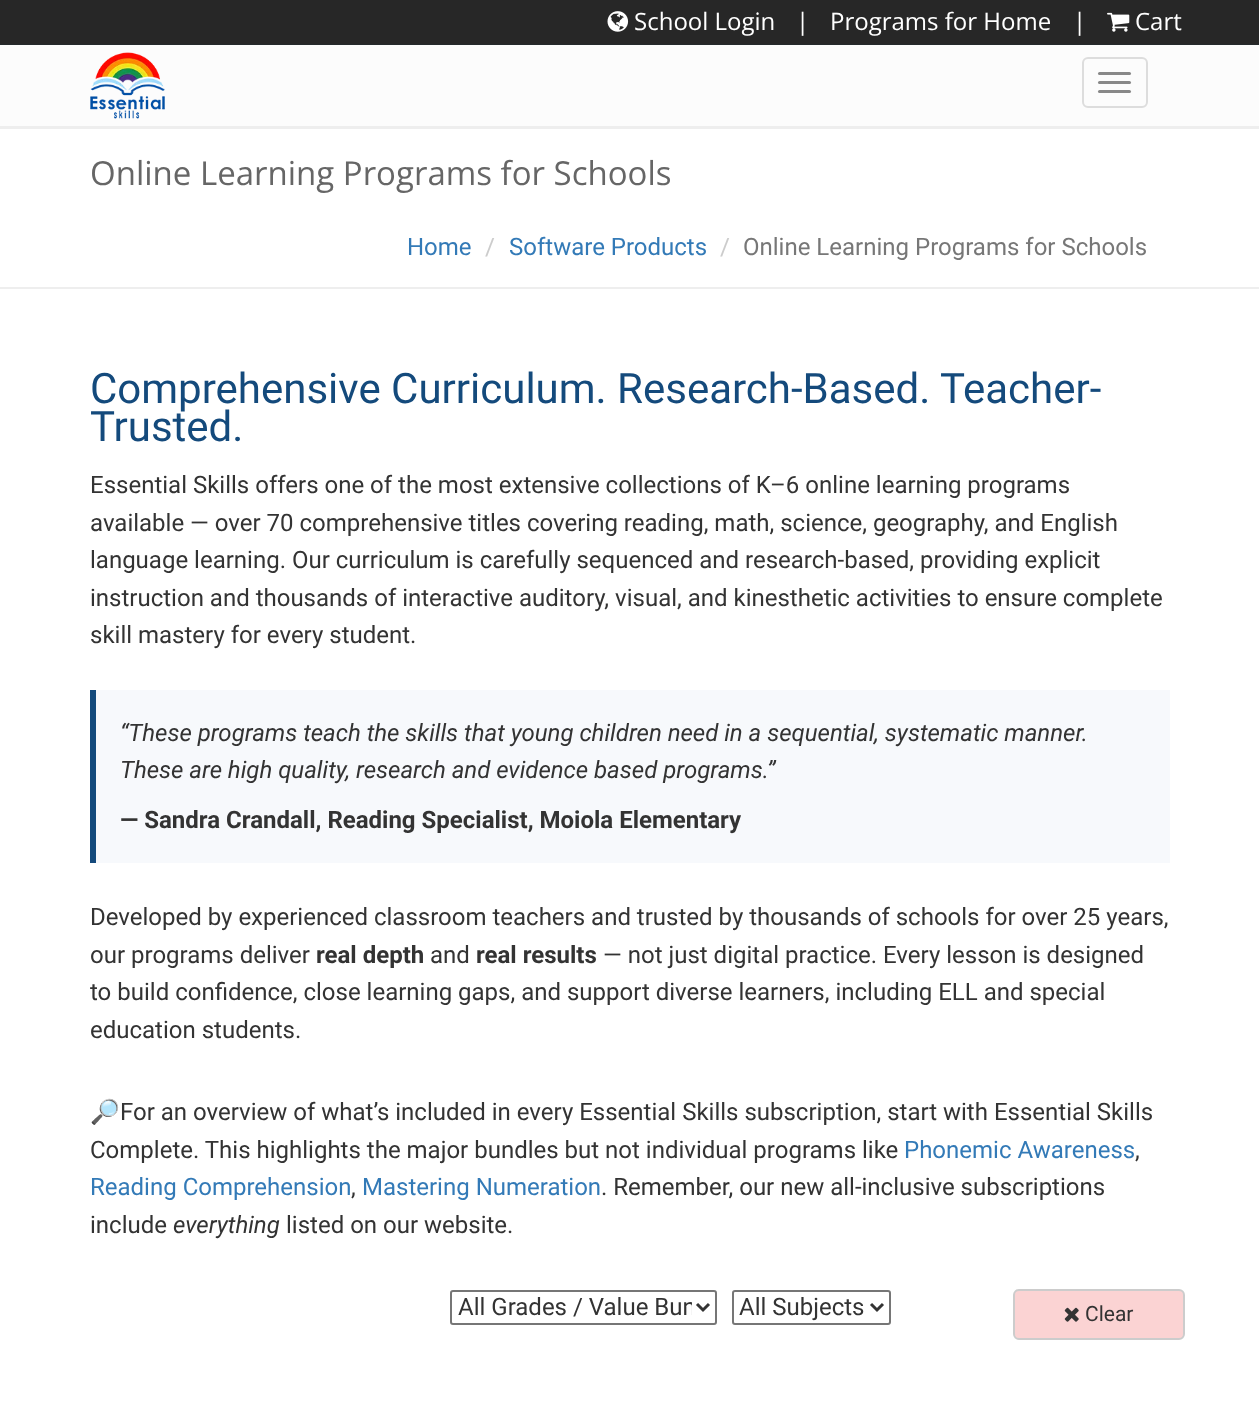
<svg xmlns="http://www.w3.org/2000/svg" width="1259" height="1407">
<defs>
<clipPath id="clip1"><rect x="458" y="1292" width="234" height="31"/></clipPath>
</defs>
<rect width="100%" height="100%" fill="#fff"/>
<rect y="126" width="1259" height="3" fill="#eee"/>
<rect width="1259" height="44" fill="#272727"/>
<rect y="44" width="1259" height="1" fill="#252a2c"/>
<image x="607" y="11" width="22" height="21" href="media/1.png"/>
<text x="634" y="30" style="font-family:Open Sans;font-size:24px;fill:#fff">School Login</text>
<text x="796" y="30" style="font-family:Open Sans;font-size:24px;fill:#fff">|</text>
<text x="830" y="30" style="font-family:Open Sans;font-size:24px;fill:#fff">Programs for Home</text>
<text x="1073" y="30" style="font-family:Open Sans;font-size:24px;fill:#fff">|</text>
<image x="1107" y="12" width="23" height="20" href="media/2.png"/>
<text x="1135" y="30" style="font-family:Open Sans;font-size:24px;fill:#fff">Cart</text>
<rect y="45" width="1259" height="81" fill="#fcfcfc"/>
<image x="90" y="52" width="75" height="67" href="media/3.png"/>
<rect x="1083" y="58" width="64" height="49" rx="5" fill="none" stroke="#ddd" stroke-width="2"/>
<rect x="1098" y="72" width="33" height="3" rx="1.5" fill="#888"/>
<rect x="1098" y="81" width="33" height="3" rx="1.5" fill="#888"/>
<rect x="1098" y="90" width="33" height="3" rx="1.5" fill="#888"/>
<rect y="287" width="1259" height="2" fill="#eee"/>
<text x="90" y="185" style="font-family:Open Sans;font-size:33px;fill:#666">Online Learning Programs for Schools</text>
<text x="407" y="255" style="font-family:Roboto;font-size:24px;fill:#337ab7">Home</text>
<text x="485" y="255" style="font-family:Roboto;font-size:24px;fill:#ccc">/</text>
<text x="509" y="255" style="font-family:Roboto;font-size:24px;fill:#337ab7">Software Products</text>
<text x="720" y="255" style="font-family:Roboto;font-size:24px;fill:#ccc">/</text>
<text x="743" y="255" style="font-family:Roboto;font-size:24px;fill:#777">Online Learning Programs for Schools</text>
<text x="90" y="403" style="font-family:Roboto;font-size:42px;fill:#144a7c">Comprehensive Curriculum. Research-Based. Teacher-</text>
<text x="90" y="441" style="font-family:Roboto;font-size:42px;fill:#144a7c">Trusted.</text>
<text x="90" y="493" style="font-family:Roboto;font-size:24px;fill:#333">Essential Skills offers one of the most extensive collections of K–6 online learning programs</text>
<text x="90" y="531" style="font-family:Roboto;font-size:24px;fill:#333">available — over 70 comprehensive titles covering reading, math, science, geography, and English</text>
<text x="90" y="568" style="font-family:Roboto;font-size:24px;fill:#333">language learning. Our curriculum is carefully sequenced and research-based, providing explicit</text>
<text x="90" y="606" style="font-family:Roboto;font-size:24px;fill:#333">instruction and thousands of interactive auditory, visual, and kinesthetic activities to ensure complete</text>
<text x="90" y="643" style="font-family:Roboto;font-size:24px;fill:#333">skill mastery for every student.</text>
<rect x="96" y="690" width="1074" height="173" fill="#f7f9fc"/>
<rect x="90" y="690" width="6" height="173" fill="#144a7c"/>
<text x="120" y="741" style="font-family:Roboto;font-size:24px;font-style:italic;fill:#333">“These programs teach the skills that young children need in a sequential, systematic manner.</text>
<text x="120" y="778" style="font-family:Roboto;font-size:24px;font-style:italic;fill:#333">These are high quality, research and evidence based programs.”</text>
<text x="120" y="828" style="font-family:Roboto;font-size:24px;font-weight:bold;fill:#333">— Sandra Crandall, Reading Specialist, Moiola Elementary</text>
<text x="90" y="925" style="font-family:Roboto;font-size:24px;fill:#333">Developed by experienced classroom teachers and trusted by thousands of schools for over 25 years,</text>
<text x="90" y="963" style="font-family:Roboto;font-size:24px;fill:#333">our programs deliver</text>
<text x="316" y="963" style="font-family:Roboto;font-size:24px;font-weight:bold;fill:#333">real depth</text>
<text x="430" y="963" style="font-family:Roboto;font-size:24px;fill:#333">and</text>
<text x="476" y="963" style="font-family:Roboto;font-size:24px;font-weight:bold;fill:#333">real results</text>
<text x="603" y="963" style="font-family:Roboto;font-size:24px;fill:#333">— not just digital practice. Every lesson is designed</text>
<text x="90" y="1000" style="font-family:Roboto;font-size:24px;fill:#333">to build confidence, close learning gaps, and support diverse learners, including ELL and special</text>
<text x="90" y="1038" style="font-family:Roboto;font-size:24px;fill:#333">education students.</text>
<text x="90" y="1120" style="font-family:Noto Color Emoji;font-size:24px;fill:#333">🔎</text>
<text x="120" y="1120" style="font-family:Roboto;font-size:24px;fill:#333">For an overview of what’s included in every Essential Skills subscription, start with Essential Skills</text>
<text x="90" y="1158" style="font-family:Roboto;font-size:24px;fill:#333">Complete. This highlights the major bundles but not individual programs like</text>
<text x="904" y="1158" style="font-family:Roboto;font-size:24px;fill:#337ab7">Phonemic Awareness</text>
<text x="1135" y="1158" style="font-family:Roboto;font-size:24px;fill:#333">,</text>
<text x="90" y="1195" style="font-family:Roboto;font-size:24px;fill:#337ab7">Reading Comprehension</text>
<text x="351" y="1195" style="font-family:Roboto;font-size:24px;fill:#333">,</text>
<text x="362" y="1195" style="font-family:Roboto;font-size:24px;fill:#337ab7">Mastering Numeration</text>
<text x="601" y="1195" style="font-family:Roboto;font-size:24px;fill:#333">. Remember, our new all-inclusive subscriptions</text>
<text x="90" y="1233" style="font-family:Roboto;font-size:24px;fill:#333">include</text>
<text x="173" y="1233" style="font-family:Roboto;font-size:24px;font-style:italic;fill:#333">everything</text>
<text x="286" y="1233" style="font-family:Roboto;font-size:24px;fill:#333">listed on our website.</text>
<rect x="451" y="1291" width="265" height="33" rx="2" fill="none" stroke="#767676" stroke-width="2"/>
<path d="M697 1304l6 6l6-6" fill="none" stroke="#333" stroke-width="3"/>
<g clip-path="url(#clip1)">
<text x="458" y="1315" style="font-family:Roboto;font-size:24px;fill:#333">All Grades / Value Bun</text>
</g>
<rect x="733" y="1291" width="157" height="33" rx="2" fill="none" stroke="#767676" stroke-width="2"/>
<path d="M871 1304l6 6l6-6" fill="none" stroke="#333" stroke-width="3"/>
<text x="739" y="1315" style="font-family:Roboto;font-size:24px;fill:#333">All Subjects</text>
<rect x="1014" y="1290" width="170" height="49" rx="5" fill="#fbd3d3" stroke="#ccc" stroke-width="2"/>
<image x="1064" y="1307" width="15" height="15" href="media/4.png"/>
<text x="1085" y="1321" style="font-family:Roboto;font-size:21px;fill:#333">Clear</text>
</svg>
